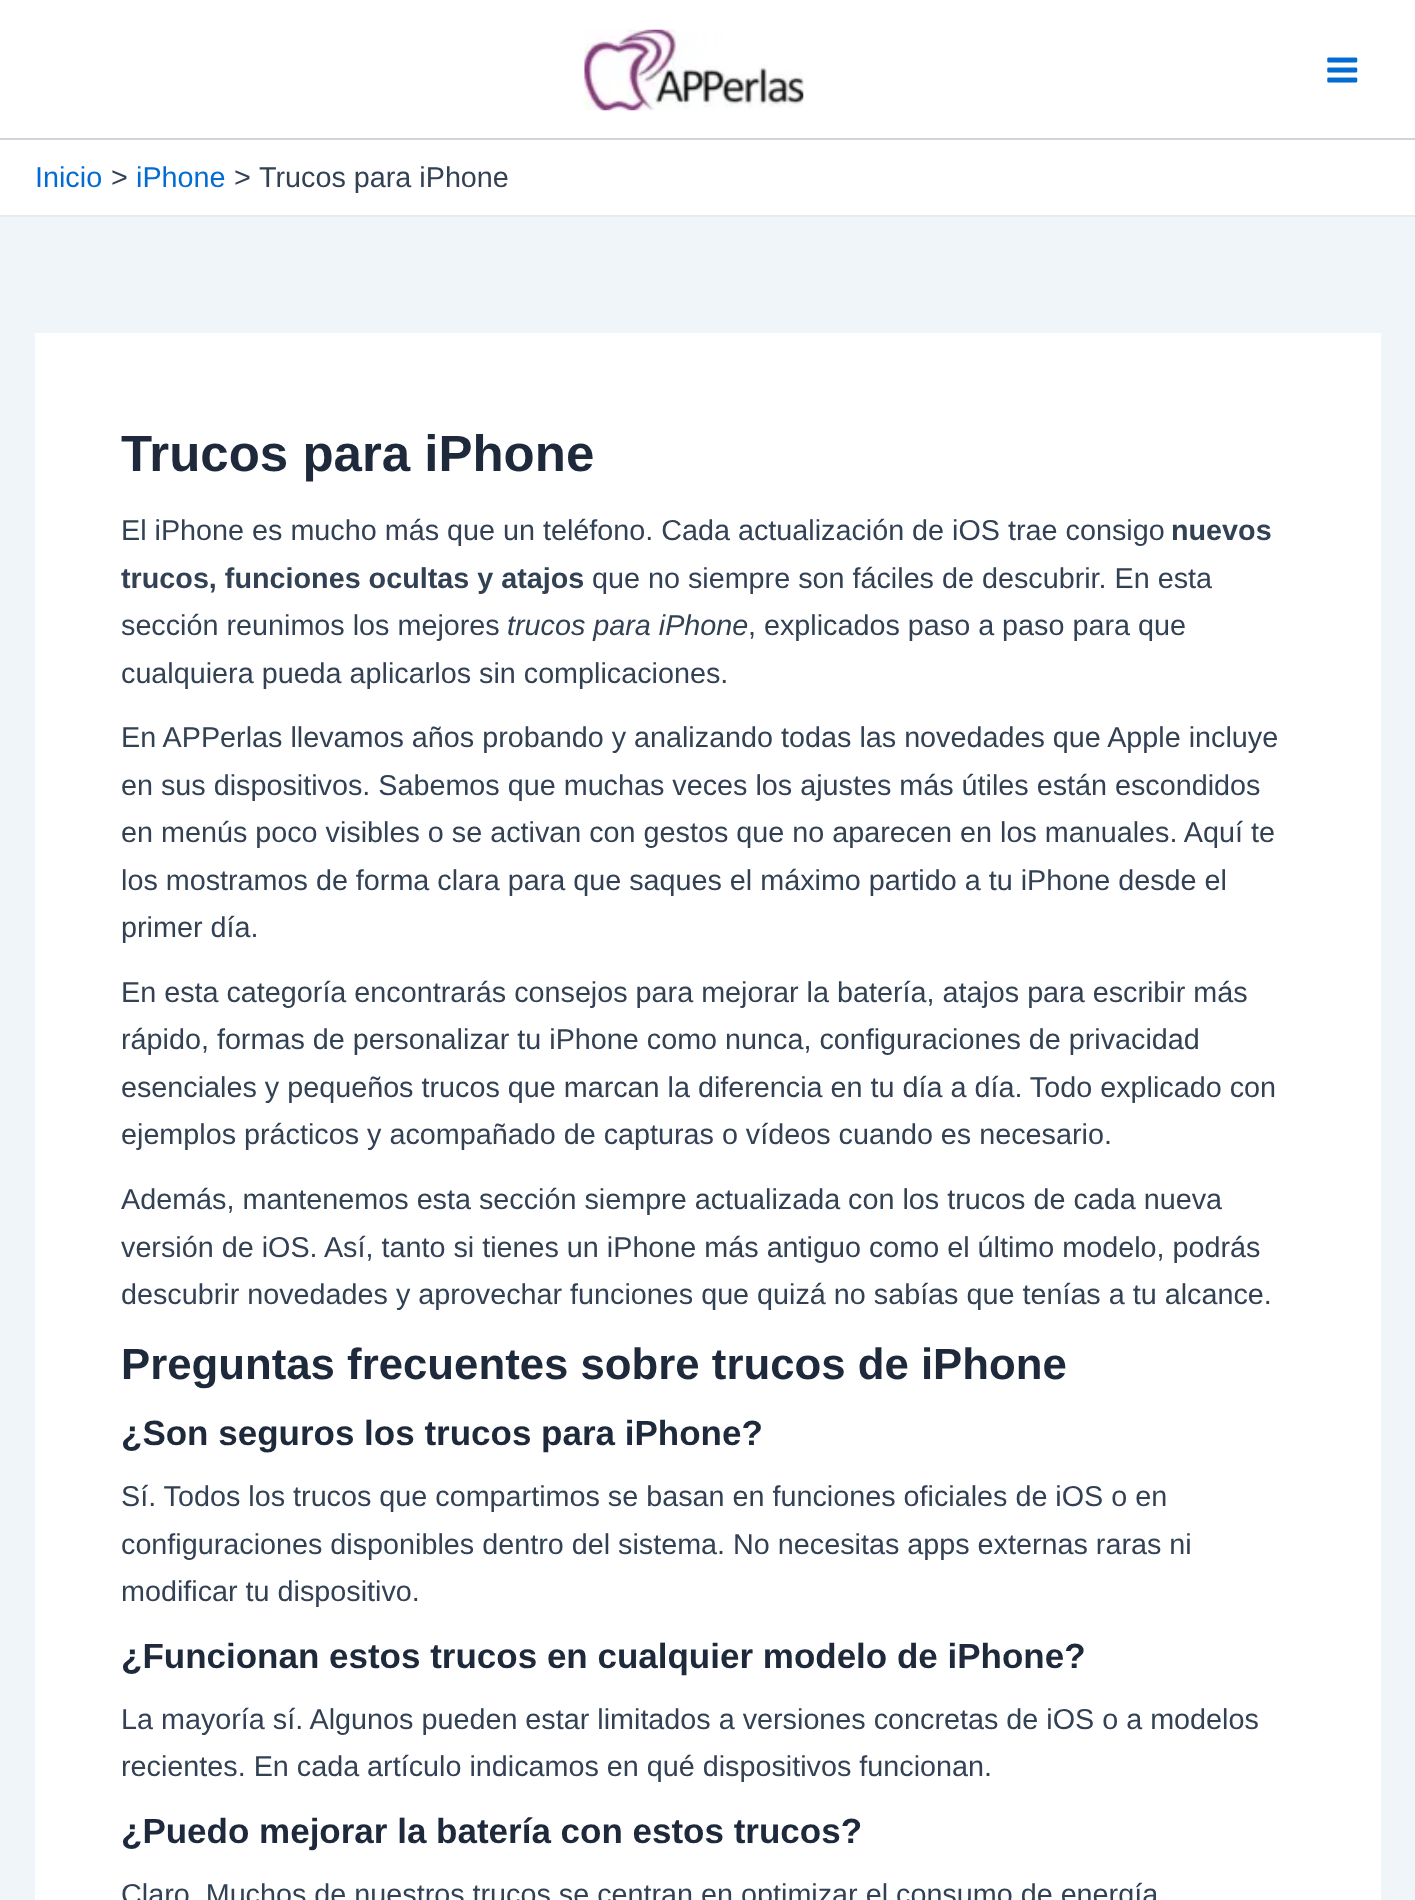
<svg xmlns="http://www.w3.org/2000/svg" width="1415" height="1900">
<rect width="100%" height="100%" fill="#f0f5fa"/>
<rect width="1415" height="138" fill="#fff"/>
<rect y="138" width="1415" height="2" fill="#d1d5db"/>
<image x="584" y="29" width="220" height="82" href="media/1.png"/>
<image x="1327" y="57" width="31" height="26" href="media/2.png"/>
<rect y="140" width="1415" height="75" fill="#fff"/>
<rect y="215" width="1415" height="2" fill="#eaeaea"/>
<text x="35" y="187" style="font-family:Liberation Sans;font-size:28.75px;fill:#046bd2">Inicio</text>
<text x="111" y="187" style="font-family:Liberation Sans;font-size:28.75px;fill:#334155">&gt;</text>
<text x="136" y="187" style="font-family:Liberation Sans;font-size:28.75px;fill:#046bd2">iPhone</text>
<text x="234" y="187" style="font-family:Liberation Sans;font-size:28.75px;fill:#334155">&gt;</text>
<text x="259" y="187" style="font-family:Liberation Sans;font-size:28.75px;fill:#334155">Trucos para iPhone</text>
<rect x="35" y="333" width="1346" height="1567" fill="#fff"/>
<text x="121" y="471" style="font-family:Liberation Sans;font-size:51px;font-weight:bold;fill:#1e293b">Trucos para iPhone</text>
<text x="121" y="540" style="font-family:Liberation Sans;font-size:28.75px;fill:#334155">El iPhone es mucho más que un teléfono. Cada actualización de iOS trae consigo</text>
<text x="1171" y="540" style="font-family:Liberation Sans;font-size:28.75px;font-weight:bold;fill:#334155">nuevos</text>
<text x="121" y="588" style="font-family:Liberation Sans;font-size:28.75px;font-weight:bold;fill:#334155">trucos, funciones ocultas y atajos</text>
<text x="592" y="588" style="font-family:Liberation Sans;font-size:28.75px;fill:#334155">que no siempre son fáciles de descubrir. En esta</text>
<text x="121" y="635" style="font-family:Liberation Sans;font-size:28.75px;fill:#334155">sección reunimos los mejores</text>
<text x="507" y="635" style="font-family:Liberation Sans;font-size:28.75px;font-style:italic;fill:#334155">trucos para iPhone</text>
<text x="748" y="635" style="font-family:Liberation Sans;font-size:28.75px;fill:#334155">, explicados paso a paso para que</text>
<text x="121" y="683" style="font-family:Liberation Sans;font-size:28.75px;fill:#334155">cualquiera pueda aplicarlos sin complicaciones.</text>
<text x="121" y="747" style="font-family:Liberation Sans;font-size:28.75px;fill:#334155">En APPerlas llevamos años probando y analizando todas las novedades que Apple incluye</text>
<text x="121" y="795" style="font-family:Liberation Sans;font-size:28.75px;fill:#334155">en sus dispositivos. Sabemos que muchas veces los ajustes más útiles están escondidos</text>
<text x="121" y="842" style="font-family:Liberation Sans;font-size:28.75px;fill:#334155">en menús poco visibles o se activan con gestos que no aparecen en los manuales. Aquí te</text>
<text x="121" y="890" style="font-family:Liberation Sans;font-size:28.75px;fill:#334155">los mostramos de forma clara para que saques el máximo partido a tu iPhone desde el</text>
<text x="121" y="937" style="font-family:Liberation Sans;font-size:28.75px;fill:#334155">primer día.</text>
<text x="121" y="1002" style="font-family:Liberation Sans;font-size:28.75px;fill:#334155">En esta categoría encontrarás consejos para mejorar la batería, atajos para escribir más</text>
<text x="121" y="1049" style="font-family:Liberation Sans;font-size:28.75px;fill:#334155">rápido, formas de personalizar tu iPhone como nunca, configuraciones de privacidad</text>
<text x="121" y="1097" style="font-family:Liberation Sans;font-size:28.75px;fill:#334155">esenciales y pequeños trucos que marcan la diferencia en tu día a día. Todo explicado con</text>
<text x="121" y="1144" style="font-family:Liberation Sans;font-size:28.75px;fill:#334155">ejemplos prácticos y acompañado de capturas o vídeos cuando es necesario.</text>
<text x="121" y="1209" style="font-family:Liberation Sans;font-size:28.75px;fill:#334155">Además, mantenemos esta sección siempre actualizada con los trucos de cada nueva</text>
<text x="121" y="1257" style="font-family:Liberation Sans;font-size:28.75px;fill:#334155">versión de iOS. Así, tanto si tienes un iPhone más antiguo como el último modelo, podrás</text>
<text x="121" y="1304" style="font-family:Liberation Sans;font-size:28.75px;fill:#334155">descubrir novedades y aprovechar funciones que quizá no sabías que tenías a tu alcance.</text>
<text x="121" y="1379" style="font-family:Liberation Sans;font-size:43.75px;font-weight:bold;fill:#1e293b">Preguntas frecuentes sobre trucos de iPhone</text>
<text x="121" y="1445" style="font-family:Liberation Sans;font-size:35px;font-weight:bold;fill:#1e293b">¿Son seguros los trucos para iPhone?</text>
<text x="121" y="1506" style="font-family:Liberation Sans;font-size:28.75px;fill:#334155">Sí. Todos los trucos que compartimos se basan en funciones oficiales de iOS o en</text>
<text x="121" y="1554" style="font-family:Liberation Sans;font-size:28.75px;fill:#334155">configuraciones disponibles dentro del sistema. No necesitas apps externas raras ni</text>
<text x="121" y="1601" style="font-family:Liberation Sans;font-size:28.75px;fill:#334155">modificar tu dispositivo.</text>
<text x="121" y="1668" style="font-family:Liberation Sans;font-size:35px;font-weight:bold;fill:#1e293b">¿Funcionan estos trucos en cualquier modelo de iPhone?</text>
<text x="121" y="1729" style="font-family:Liberation Sans;font-size:28.75px;fill:#334155">La mayoría sí. Algunos pueden estar limitados a versiones concretas de iOS o a modelos</text>
<text x="121" y="1776" style="font-family:Liberation Sans;font-size:28.75px;fill:#334155">recientes. En cada artículo indicamos en qué dispositivos funcionan.</text>
<text x="121" y="1843" style="font-family:Liberation Sans;font-size:35px;font-weight:bold;fill:#1e293b">¿Puedo mejorar la batería con estos trucos?</text>
<text x="121" y="1904" style="font-family:Liberation Sans;font-size:28.75px;fill:#334155">Claro. Muchos de nuestros trucos se centran en optimizar el consumo de energía</text>
</svg>
